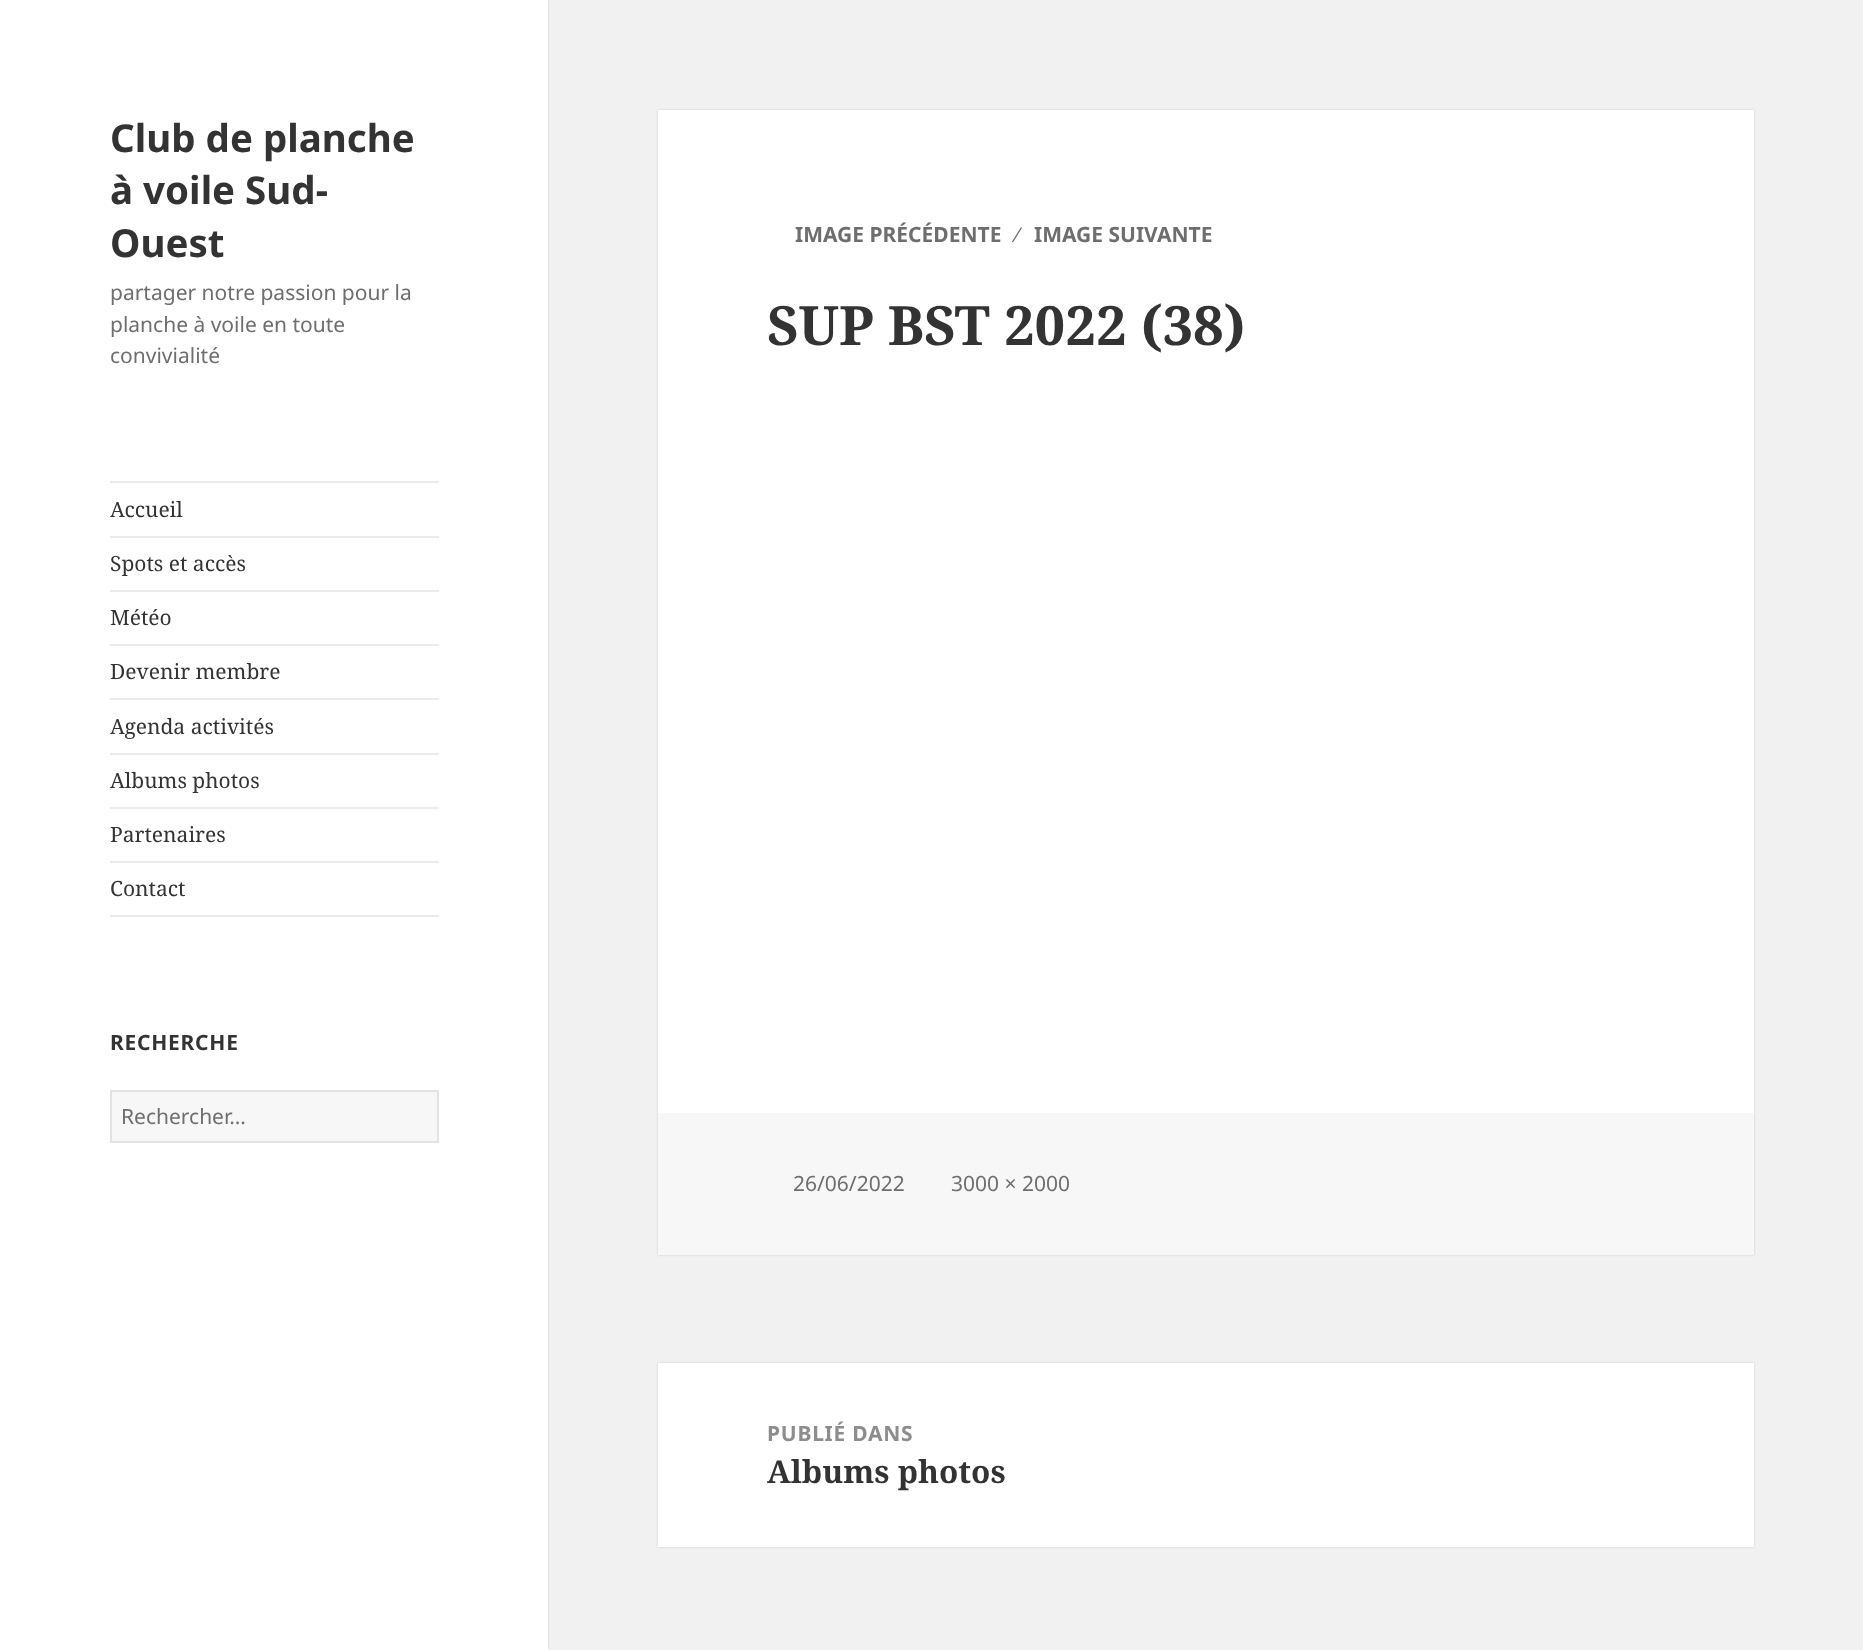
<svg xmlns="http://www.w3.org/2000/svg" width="1863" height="1650">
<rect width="100%" height="100%" fill="#f1f1f1"/>
<rect width="548" height="1650" fill="#00000026" filter="blur(1px)"/>
<rect width="548" height="1650" fill="#fff"/>
<text x="110" y="152" style="font-family:Noto Sans;font-size:38.5px;font-weight:bold;fill:#333">Club de planche</text>
<text x="110" y="204" style="font-family:Noto Sans;font-size:38.5px;font-weight:bold;fill:#333">à voile Sud-</text>
<text x="110" y="257" style="font-family:Noto Sans;font-size:38.5px;font-weight:bold;fill:#333">Ouest</text>
<text x="110" y="300" style="font-family:Noto Sans;font-size:21px;fill:#6e6e6e">partager notre passion pour la</text>
<text x="110" y="332" style="font-family:Noto Sans;font-size:21px;fill:#6e6e6e">planche à voile en toute</text>
<text x="110" y="363" style="font-family:Noto Sans;font-size:21px;fill:#6e6e6e">convivialité</text>
<rect x="110" y="481" width="329" height="2" fill="#ebebeb"/>
<rect x="110" y="915" width="329" height="2" fill="#ebebeb"/>
<text x="110" y="517" style="font-family:Noto Serif;font-size:21px;fill:#333">Accueil</text>
<rect x="110" y="536" width="329" height="2" fill="#ebebeb"/>
<text x="110" y="571" style="font-family:Noto Serif;font-size:21px;fill:#333">Spots et accès</text>
<rect x="110" y="590" width="329" height="2" fill="#ebebeb"/>
<text x="110" y="625" style="font-family:Noto Serif;font-size:21px;fill:#333">Météo</text>
<rect x="110" y="644" width="329" height="2" fill="#ebebeb"/>
<text x="110" y="679" style="font-family:Noto Serif;font-size:21px;fill:#333">Devenir membre</text>
<rect x="110" y="698" width="329" height="2" fill="#ebebeb"/>
<text x="110" y="734" style="font-family:Noto Serif;font-size:21px;fill:#333">Agenda activités</text>
<rect x="110" y="753" width="329" height="2" fill="#ebebeb"/>
<text x="110" y="788" style="font-family:Noto Serif;font-size:21px;fill:#333">Albums photos</text>
<rect x="110" y="807" width="329" height="2" fill="#ebebeb"/>
<text x="110" y="842" style="font-family:Noto Serif;font-size:21px;fill:#333">Partenaires</text>
<rect x="110" y="861" width="329" height="2" fill="#ebebeb"/>
<text x="110" y="896" style="font-family:Noto Serif;font-size:21px;fill:#333">Contact</text>
<text x="110" y="1050" style="font-family:Noto Sans;font-size:21px;font-weight:bold;letter-spacing:0.75px;fill:#333">RECHERCHE</text>
<rect x="111" y="1091" width="327" height="51" fill="#f7f7f7" stroke="#e3e3e3" stroke-width="2"/>
<text x="121" y="1124" style="font-family:Noto Sans;font-size:21px;fill:#6e6e6e">Rechercher…</text>
<rect x="658" y="110" width="1096" height="1145" fill="#00000026" filter="blur(1px)"/>
<rect x="658" y="110" width="1096" height="1003" fill="#fff"/>
<text x="795" y="242" style="font-family:Noto Sans;font-size:21px;font-weight:bold;fill:#6e6e6e">IMAGE PRÉCÉDENTE</text>
<text x="1016" y="242" style="font-family:Liberation Sans;font-size:21px;fill:#6e6e6e">∕</text>
<text x="1034" y="242" style="font-family:Noto Sans;font-size:21px;font-weight:bold;fill:#6e6e6e">IMAGE SUIVANTE</text>
<text x="767" y="345" style="font-family:Noto Serif;font-size:54.25px;font-weight:bold;fill:#333">SUP BST 2022 (38)</text>
<rect x="658" y="1113" width="1096" height="142" fill="#f7f7f7"/>
<text x="793" y="1191" style="font-family:Noto Sans;font-size:21px;fill:#6e6e6e">26/06/2022</text>
<text x="951" y="1191" style="font-family:Noto Sans;font-size:21px;fill:#6e6e6e">3000 × 2000</text>
<rect x="658" y="1363" width="1096" height="184" fill="#00000026" filter="blur(1px)"/>
<rect x="658" y="1363" width="1096" height="184" fill="#fff"/>
<text x="767" y="1441" style="font-family:Noto Sans;font-size:21px;font-weight:bold;letter-spacing:0.75px;fill:#8d8d8d">PUBLIÉ DANS</text>
<text x="767" y="1483" style="font-family:Noto Serif;font-size:31.5px;font-weight:bold;fill:#333">Albums photos</text>
</svg>
